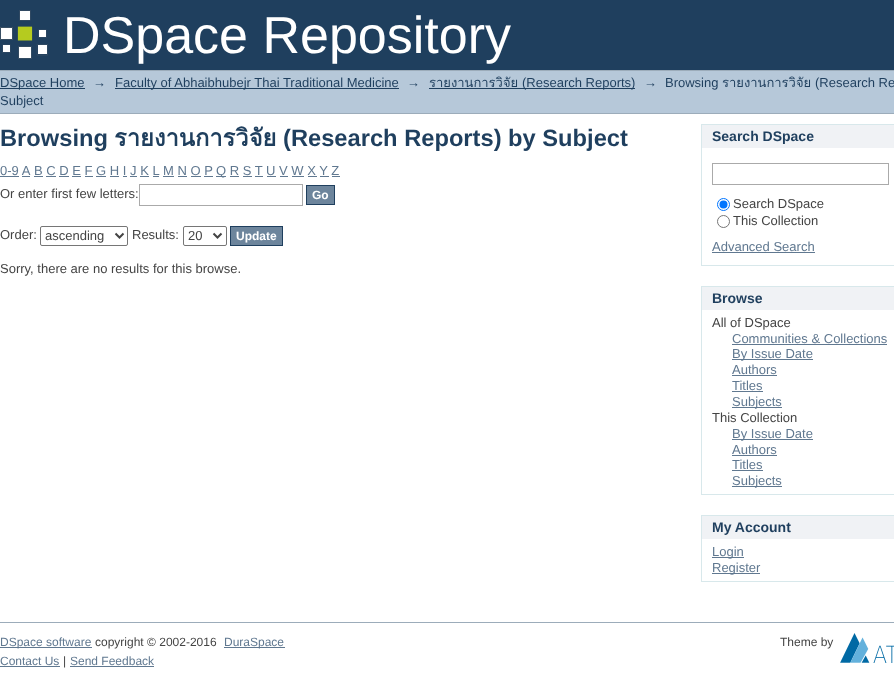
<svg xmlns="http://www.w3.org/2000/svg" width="894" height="694">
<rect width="100%" height="100%" fill="#fff"/>
<rect width="894" height="70" fill="#1f3f5e"/>
<image x="0" y="10" width="48" height="49" href="media/1.png"/>
<text x="63" y="53" style="font-family:Liberation Sans;font-size:52px;fill:#fff">DSpace Repository</text>
<rect y="71" width="894" height="42" fill="#b6c8d9"/>
<rect y="70" width="894" height="1" fill="#9cacba"/>
<rect y="113" width="894" height="1" fill="#9cacba"/>
<rect y="88" width="85" height="1" fill="#1f3f5e"/>
<text x="0" y="87" style="font-family:Liberation Sans;font-size:13px;fill:#1f3f5e">DSpace Home</text>
<text x="93" y="87" style="font-family:Liberation Sans;font-size:13px;fill:#1f3f5e">→</text>
<rect x="115" y="88" width="284" height="1" fill="#1f3f5e"/>
<text x="115" y="87" style="font-family:Liberation Sans;font-size:13px;fill:#1f3f5e">Faculty of Abhaibhubejr Thai Traditional Medicine</text>
<text x="407" y="87" style="font-family:Liberation Sans;font-size:13px;fill:#1f3f5e">→</text>
<text x="429" y="87" style="font-family:Loma;font-size:13px;fill:#1f3f5e">รายงานการวิจัย</text>
<rect x="429" y="88" width="206" height="1" fill="#1f3f5e"/>
<text x="522" y="87" style="font-family:Liberation Sans;font-size:13px;fill:#1f3f5e">(Research Reports)</text>
<text x="644" y="87" style="font-family:Liberation Sans;font-size:13px;fill:#1f3f5e">→</text>
<text x="665" y="87" style="font-family:Liberation Sans;font-size:13px;fill:#1f3f5e">Browsing</text>
<text x="722" y="87" style="font-family:Loma;font-size:13px;fill:#1f3f5e">รายงานการวิจัย</text>
<text x="815" y="87" style="font-family:Liberation Sans;font-size:13px;fill:#1f3f5e">(Research Re</text>
<text x="0" y="105" style="font-family:Liberation Sans;font-size:13px;fill:#1f3f5e">Subject</text>
<text x="0" y="146" style="font-family:Liberation Sans;font-size:23.7px;font-weight:bold;fill:#1f3f5e">Browsing</text>
<text x="114" y="146" style="font-family:Loma;font-size:23.7px;font-weight:bold;fill:#1f3f5e">รายงานการวิจัย</text>
<text x="283" y="146" style="font-family:Liberation Sans;font-size:23.7px;font-weight:bold;fill:#1f3f5e">(Research Reports) by Subject</text>
<text x="0" y="175" style="font-family:Liberation Sans;font-size:13px;fill:#607890">0-9 A</text>
<rect y="176" width="19" height="1" fill="#607890"/>
<text x="34" y="175" style="font-family:Liberation Sans;font-size:13px;fill:#607890">B C D E F G H I J K L</text>
<rect x="34" y="176" width="9" height="1" fill="#607890"/>
<text x="163" y="175" style="font-family:Liberation Sans;font-size:13px;fill:#607890">M N O P</text>
<rect x="163" y="176" width="11" height="1" fill="#607890"/>
<rect x="216" y="176" width="10" height="1" fill="#607890"/>
<text x="216" y="175" style="font-family:Liberation Sans;font-size:13px;fill:#607890">Q R S T U V W X Y Z</text>
<rect x="22" y="176" width="8" height="1" fill="#607890"/>
<rect x="46" y="176" width="10" height="1" fill="#607890"/>
<rect x="59" y="176" width="10" height="1" fill="#607890"/>
<rect x="72" y="176" width="9" height="1" fill="#607890"/>
<rect x="85" y="176" width="8" height="1" fill="#607890"/>
<rect x="96" y="176" width="10" height="1" fill="#607890"/>
<rect x="110" y="176" width="9" height="1" fill="#607890"/>
<rect x="123" y="176" width="4" height="1" fill="#607890"/>
<rect x="130" y="176" width="7" height="1" fill="#607890"/>
<rect x="140" y="176" width="9" height="1" fill="#607890"/>
<rect x="153" y="176" width="6" height="1" fill="#607890"/>
<rect x="178" y="176" width="9" height="1" fill="#607890"/>
<rect x="191" y="176" width="10" height="1" fill="#607890"/>
<rect x="204" y="176" width="9" height="1" fill="#607890"/>
<rect x="230" y="176" width="9" height="1" fill="#607890"/>
<rect x="243" y="176" width="9" height="1" fill="#607890"/>
<rect x="255" y="176" width="8" height="1" fill="#607890"/>
<rect x="267" y="176" width="9" height="1" fill="#607890"/>
<rect x="280" y="176" width="8" height="1" fill="#607890"/>
<rect x="292" y="176" width="12" height="1" fill="#607890"/>
<rect x="308" y="176" width="9" height="1" fill="#607890"/>
<rect x="320" y="176" width="9" height="1" fill="#607890"/>
<rect x="332" y="176" width="8" height="1" fill="#607890"/>
<text x="0" y="198" style="font-family:Liberation Sans;font-size:13px;fill:#444">Or enter first few letters:</text>
<rect x="139.5" y="184.5" width="163" height="21" fill="none" stroke="#aaa"/>
<rect x="306.5" y="185.5" width="28" height="19" fill="#6d859c" stroke="#1f3f5e"/>
<text x="312" y="199" style="font-family:Liberation Sans;font-size:12px;font-weight:bold;fill:#fff">Go</text>
<text x="0" y="239" style="font-family:Liberation Sans;font-size:13px;fill:#444">Order:</text>
<rect x="40.5" y="226.5" width="87" height="19" rx="1.5" fill="none" stroke="#767676"/>
<path d="M115.5 233.5l4 4l4-4" fill="none" stroke="#444" stroke-width="2"/>
<text x="45" y="240" style="font-family:Liberation Sans;font-size:13px;fill:#444">ascending</text>
<text x="132" y="239" style="font-family:Liberation Sans;font-size:13px;fill:#444">Results:</text>
<rect x="183.5" y="226.5" width="43" height="19" rx="1.5" fill="none" stroke="#767676"/>
<path d="M213.5 233.5l4 4l4-4" fill="none" stroke="#444" stroke-width="2"/>
<text x="188" y="240" style="font-family:Liberation Sans;font-size:13px;fill:#444">20</text>
<rect x="230.5" y="226.5" width="52" height="19" fill="#6d859c" stroke="#1f3f5e"/>
<text x="236" y="240" style="font-family:Liberation Sans;font-size:12px;font-weight:bold;fill:#fff">Update</text>
<text x="0" y="273" style="font-family:Liberation Sans;font-size:13px;fill:#444">Sorry, there are no results for this browse.</text>
<rect x="702" y="125" width="192" height="23" fill="#f0f2f5"/>
<rect x="701" y="124" width="193" height="1" fill="#d8e8eb"/>
<rect x="701" y="124" width="1" height="24" fill="#d8e8eb"/>
<text x="712" y="141" style="font-family:Liberation Sans;font-size:14px;font-weight:bold;fill:#1f3f5e">Search DSpace</text>
<rect x="701" y="265" width="193" height="1" fill="#d8e8eb"/>
<rect x="701" y="148" width="1" height="118" fill="#d8e8eb"/>
<rect x="712.5" y="163.5" width="176" height="21" fill="none" stroke="#aaa"/>
<circle cx="723.5" cy="204.5" r="6" fill="none" stroke="#0075ff"/>
<circle cx="723.5" cy="204.5" r="4" fill="#0075ff"/>
<text x="733" y="208" style="font-family:Liberation Sans;font-size:13px;fill:#444">Search DSpace</text>
<circle cx="723.5" cy="221.5" r="6" fill="none" stroke="#767676"/>
<text x="733" y="225" style="font-family:Liberation Sans;font-size:13px;fill:#444">This Collection</text>
<text x="712" y="251" style="font-family:Liberation Sans;font-size:13px;fill:#607890">Advanced Search</text>
<rect x="712" y="252" width="103" height="1" fill="#607890"/>
<rect x="702" y="287" width="192" height="23" fill="#f0f2f5"/>
<rect x="701" y="286" width="193" height="1" fill="#d8e8eb"/>
<rect x="701" y="286" width="1" height="24" fill="#d8e8eb"/>
<text x="712" y="303" style="font-family:Liberation Sans;font-size:14px;font-weight:bold;fill:#1f3f5e">Browse</text>
<rect x="701" y="494" width="193" height="1" fill="#d8e8eb"/>
<rect x="701" y="310" width="1" height="185" fill="#d8e8eb"/>
<text x="712" y="327" style="font-family:Liberation Sans;font-size:13px;fill:#444">All of DSpace</text>
<text x="732" y="343" style="font-family:Liberation Sans;font-size:13px;fill:#607890">Communities &amp; Collections</text>
<rect x="732" y="344" width="155" height="1" fill="#607890"/>
<rect x="732" y="359" width="81" height="1" fill="#607890"/>
<text x="732" y="358" style="font-family:Liberation Sans;font-size:13px;fill:#607890">By Issue Date</text>
<text x="732" y="374" style="font-family:Liberation Sans;font-size:13px;fill:#607890">Authors</text>
<rect x="732" y="375" width="45" height="1" fill="#607890"/>
<text x="732" y="390" style="font-family:Liberation Sans;font-size:13px;fill:#607890">Titles</text>
<rect x="732" y="391" width="31" height="1" fill="#607890"/>
<rect x="732" y="407" width="50" height="1" fill="#607890"/>
<text x="732" y="406" style="font-family:Liberation Sans;font-size:13px;fill:#607890">Subjects</text>
<text x="712" y="422" style="font-family:Liberation Sans;font-size:13px;fill:#444">This Collection</text>
<rect x="732" y="439" width="81" height="1" fill="#607890"/>
<text x="732" y="438" style="font-family:Liberation Sans;font-size:13px;fill:#607890">By Issue Date</text>
<text x="732" y="454" style="font-family:Liberation Sans;font-size:13px;fill:#607890">Authors</text>
<rect x="732" y="455" width="45" height="1" fill="#607890"/>
<text x="732" y="469" style="font-family:Liberation Sans;font-size:13px;fill:#607890">Titles</text>
<rect x="732" y="470" width="31" height="1" fill="#607890"/>
<rect x="732" y="486" width="50" height="1" fill="#607890"/>
<text x="732" y="485" style="font-family:Liberation Sans;font-size:13px;fill:#607890">Subjects</text>
<rect x="702" y="516" width="192" height="23" fill="#f0f2f5"/>
<rect x="701" y="515" width="193" height="1" fill="#d8e8eb"/>
<rect x="701" y="515" width="1" height="24" fill="#d8e8eb"/>
<text x="712" y="532" style="font-family:Liberation Sans;font-size:14px;font-weight:bold;fill:#1f3f5e">My Account</text>
<rect x="701" y="581" width="193" height="1" fill="#d8e8eb"/>
<rect x="701" y="539" width="1" height="43" fill="#d8e8eb"/>
<rect x="712" y="557" width="32" height="1" fill="#607890"/>
<text x="712" y="556" style="font-family:Liberation Sans;font-size:13px;fill:#607890">Login</text>
<rect x="712" y="573" width="48" height="1" fill="#607890"/>
<text x="712" y="572" style="font-family:Liberation Sans;font-size:13px;fill:#607890">Register</text>
<rect y="622" width="894" height="1" fill="#9cacba"/>
<rect y="647" width="92" height="1" fill="#607890"/>
<text x="0" y="646" style="font-family:Liberation Sans;font-size:12px;fill:#607890">DSpace software</text>
<text x="95" y="646" style="font-family:Liberation Sans;font-size:12px;fill:#444">copyright © 2002-2016</text>
<rect x="224" y="647" width="61" height="1" fill="#607890"/>
<text x="224" y="646" style="font-family:Liberation Sans;font-size:12px;fill:#607890">DuraSpace</text>
<text x="780" y="646" style="font-family:Liberation Sans;font-size:12px;fill:#444">Theme by</text>
<image x="840" y="633" width="54" height="30" href="media/2.png"/>
<text x="0" y="665" style="font-family:Liberation Sans;font-size:12px;fill:#607890">Contact Us</text>
<rect y="666" width="60" height="1" fill="#607890"/>
<text x="63" y="665" style="font-family:Liberation Sans;font-size:12px;fill:#444">|</text>
<text x="70" y="665" style="font-family:Liberation Sans;font-size:12px;fill:#607890">Send Feedback</text>
<rect x="70" y="666" width="84" height="1" fill="#607890"/>
</svg>
